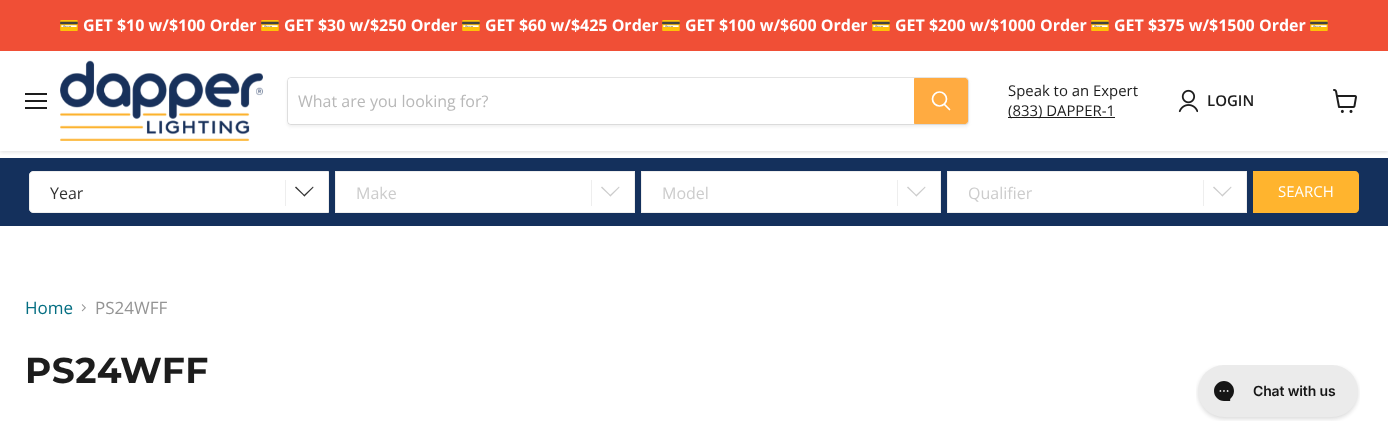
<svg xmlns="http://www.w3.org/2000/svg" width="1388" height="444">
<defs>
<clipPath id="clip1"><rect x="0" y="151" width="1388" height="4"/></clipPath>
</defs>
<rect width="100%" height="100%" fill="#fff"/>
<rect y="158" width="1388" height="68" fill="#14305c"/>
<g clip-path="url(#clip1)">
<rect y="52" width="1388" height="100" fill="#80808040" filter="blur(2px)"/>
</g>
<rect width="1388" height="51" fill="#f04f36"/>
<text x="59" y="31" style="font-family:Noto Color Emoji;font-size:16px;font-weight:bold;fill:#fff">💳</text>
<text x="83" y="31" style="font-family:Open Sans;font-size:16px;font-weight:bold;fill:#fff">GET $10 w/$100 Order</text>
<text x="260" y="31" style="font-family:Noto Color Emoji;font-size:16px;font-weight:bold;fill:#fff">💳</text>
<text x="284" y="31" style="font-family:Open Sans;font-size:16px;font-weight:bold;fill:#fff">GET $30 w/$250 Order</text>
<text x="461" y="31" style="font-family:Noto Color Emoji;font-size:16px;font-weight:bold;fill:#fff">💳</text>
<text x="485" y="31" style="font-family:Open Sans;font-size:16px;font-weight:bold;fill:#fff">GET $60 w/$425 Order</text>
<text x="661" y="31" style="font-family:Noto Color Emoji;font-size:16px;font-weight:bold;fill:#fff">💳</text>
<text x="685" y="31" style="font-family:Open Sans;font-size:16px;font-weight:bold;fill:#fff">GET $100 w/$600 Order</text>
<text x="871" y="31" style="font-family:Noto Color Emoji;font-size:16px;font-weight:bold;fill:#fff">💳</text>
<text x="895" y="31" style="font-family:Open Sans;font-size:16px;font-weight:bold;fill:#fff">GET $200 w/$1000 Order</text>
<text x="1090" y="31" style="font-family:Noto Color Emoji;font-size:16px;font-weight:bold;fill:#fff">💳</text>
<text x="1114" y="31" style="font-family:Open Sans;font-size:16px;font-weight:bold;fill:#fff">GET $375 w/$1500 Order</text>
<text x="1309" y="31" style="font-family:Noto Color Emoji;font-size:16px;font-weight:bold;fill:#fff">💳</text>
<rect x="25" y="93" width="22" height="2" fill="#1d1d1d"/>
<rect x="25" y="100" width="22" height="2" fill="#1d1d1d"/>
<rect x="25" y="107" width="22" height="2" fill="#1d1d1d"/>
<image x="60" y="60" width="203" height="81" href="media/1.png"/>
<rect x="287" y="79" width="682" height="48" rx="4" fill="#8080801c" filter="blur(1.5px)"/>
<rect x="287.5" y="77.5" width="681" height="47" rx="3.5" fill="none" stroke="#80808033"/>
<path d="M291 78h623v46h-623c-1.5 0-3-1.5-3-3v-40c0-1.5 1.5-3 3-3z" fill="#fff"/>
<text x="298" y="107" style="font-family:Open Sans;font-size:16px;fill:#b8b8b8">What are you looking for?</text>
<path d="M914.5 78.5h50.5c1.5 0 2.5 1 2.5 2.5v40c0 1.5-1 2.5-2.5 2.5h-50.5z" fill="#ffab41" stroke="#ffab41"/>
<path d="M949.5 109.5l-5-5" fill="none" stroke="#fff" stroke-width="1.7" stroke-linecap="round"/>
<circle cx="939.5" cy="99" r="7" fill="none" stroke="#fff" stroke-width="1.7"/>
<text x="1008" y="96" style="font-family:Open Sans;font-size:14.9px;fill:#1d1d1d">Speak to an Expert</text>
<rect x="1008" y="117" width="107" height="1" fill="#1d1d1d"/>
<text x="1008" y="116" style="font-family:Open Sans;font-size:14.9px;fill:#1d1d1d">(833) DAPPER-1</text>
<image x="1178" y="89" width="20" height="24" href="media/2.png"/>
<text x="1207" y="106" style="font-family:Open Sans;font-size:15px;font-weight:600;fill:#1d1d1d">LOGIN</text>
<image x="1333" y="89" width="24" height="24" href="media/3.png"/>
<path d="M33 171.5h295.5v41h-295.5c-2 0-3.5-1.5-3.5-3.5v-34c0-2 1.5-3.5 3.5-3.5z" fill="#fff" stroke="#eee"/>
<rect x="285" y="180" width="1" height="26" fill="#eee"/>
<text x="50" y="199" style="font-family:Open Sans;font-size:16px;fill:#333">Year</text>
<path d="M313 186.5l.5 1l-9 9l-1-1z" fill="#333"/>
<path d="M296 186.5l9 9l-.5 1l-9.5-9z" fill="#333"/>
<rect x="335.5" y="171.5" width="299" height="41" fill="#fff" stroke="#eee"/>
<rect x="591" y="180" width="1" height="26" fill="#eee"/>
<text x="356" y="199" style="font-family:Open Sans;font-size:16px;fill:#ccc">Make</text>
<path d="M619 186.5l.5 1l-9 9l-1-1z" fill="#ccc"/>
<path d="M602 186.5l9 9l-.5 1l-9.5-9z" fill="#ccc"/>
<rect x="641.5" y="171.5" width="299" height="41" fill="#fff" stroke="#eee"/>
<rect x="897" y="180" width="1" height="26" fill="#eee"/>
<text x="662" y="199" style="font-family:Open Sans;font-size:16px;fill:#ccc">Model</text>
<path d="M925 186.5l.5 1l-9 9l-1-1z" fill="#ccc"/>
<path d="M908 186.5l9 9l-.5 1l-9.5-9z" fill="#ccc"/>
<rect x="947.5" y="171.5" width="299" height="41" fill="#fff" stroke="#eee"/>
<rect x="1203" y="180" width="1" height="26" fill="#eee"/>
<text x="968" y="199" style="font-family:Open Sans;font-size:16px;fill:#ccc">Qualifier</text>
<path d="M1231 186.5l.5 1l-9 9l-1-1z" fill="#ccc"/>
<path d="M1214 186.5l9 9l-.5 1l-9.5-9z" fill="#ccc"/>
<path d="M1253 171h102c2 0 4 2 4 4v34c0 2-2 4-4 4h-102z" fill="#ffb42e"/>
<text x="1278" y="197" style="font-family:Open Sans;font-size:15px;fill:#fff">SEARCH</text>
<text x="25" y="314" style="font-family:Open Sans;font-size:17px;fill:#046e82">Home</text>
<image x="81" y="304" width="5" height="8" href="media/4.png"/>
<text x="95" y="314" style="font-family:Open Sans;font-size:17px;fill:#949494">PS24WFF</text>
<text x="25" y="383" style="font-family:Montserrat;font-size:36px;font-weight:bold;letter-spacing:0.5px;fill:#1d1d1d">PS24WFF</text>
<image x="1196" y="365" width="164" height="56" href="media/5.png"/>
</svg>
